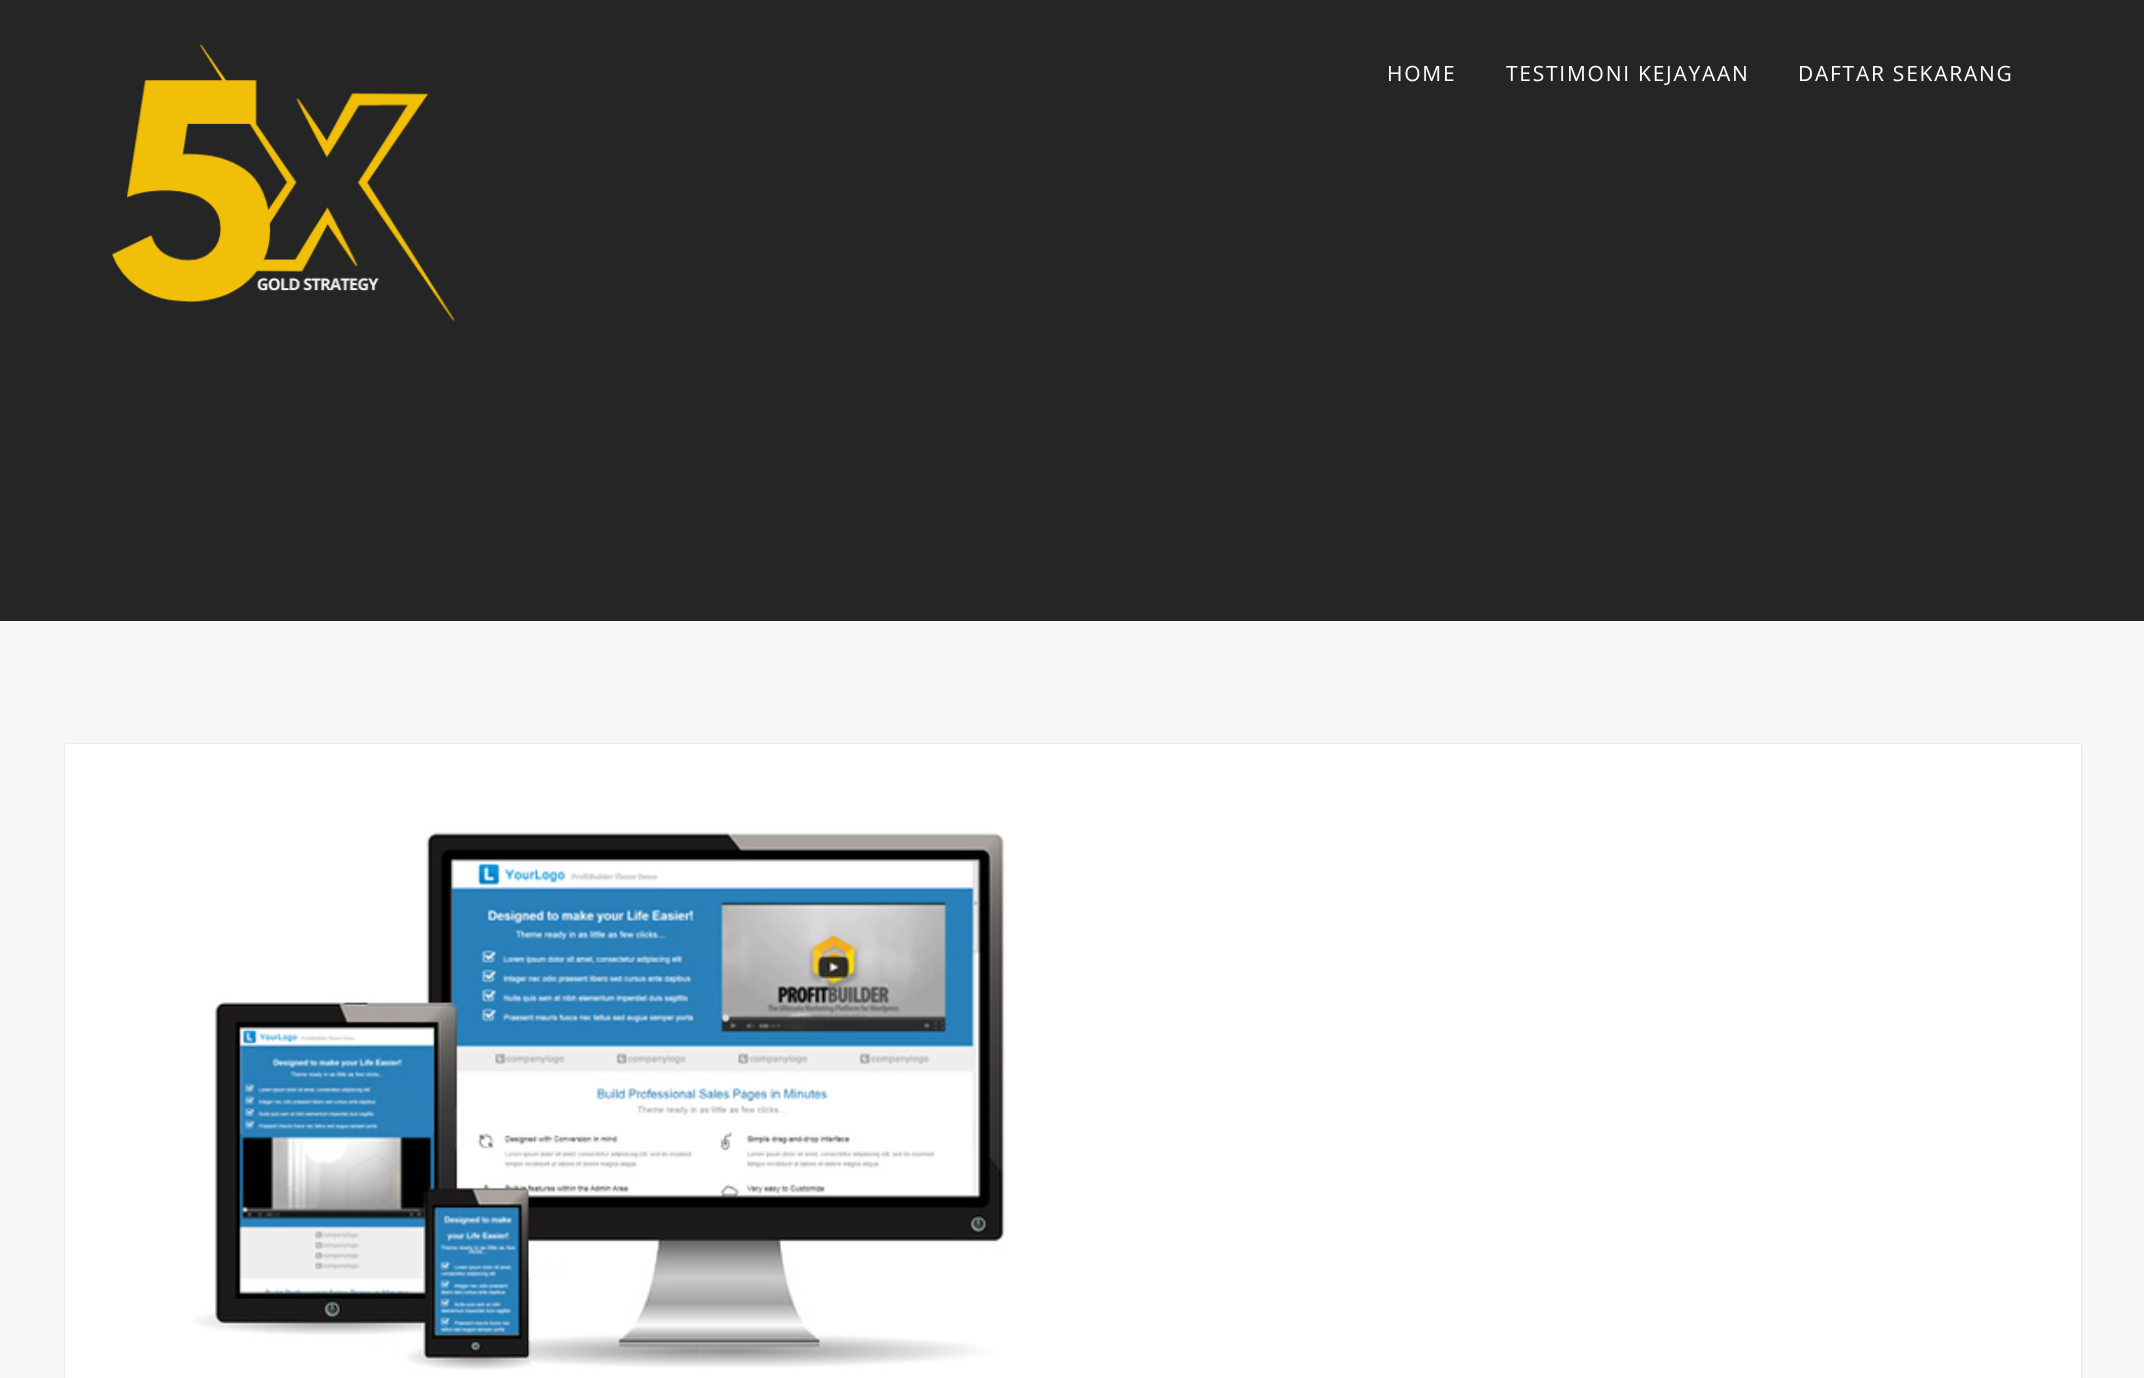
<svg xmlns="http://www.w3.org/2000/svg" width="2144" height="1378">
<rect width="100%" height="100%" fill="#f7f7f7"/>
<rect width="2144" height="621" fill="#252525"/>
<image x="111" y="44" width="344" height="277" href="media/1.png"/>
<text x="1387" y="81" style="font-family:Open Sans;font-size:21px;letter-spacing:1.75px;fill:#fff">HOME</text>
<text x="1506" y="81" style="font-family:Open Sans;font-size:21px;letter-spacing:1.75px;fill:#fff">TESTIMONI KEJAYAAN</text>
<text x="1798" y="81" style="font-family:Open Sans;font-size:21px;letter-spacing:1.75px;fill:#fff">DAFTAR SEKARANG</text>
<rect x="65" y="744" width="2016" height="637" fill="#00000026" filter="blur(1px)"/>
<rect x="65" y="744" width="2016" height="634" fill="#fff"/>
<image x="192" y="830" width="813" height="541" href="media/2.png"/>
</svg>
